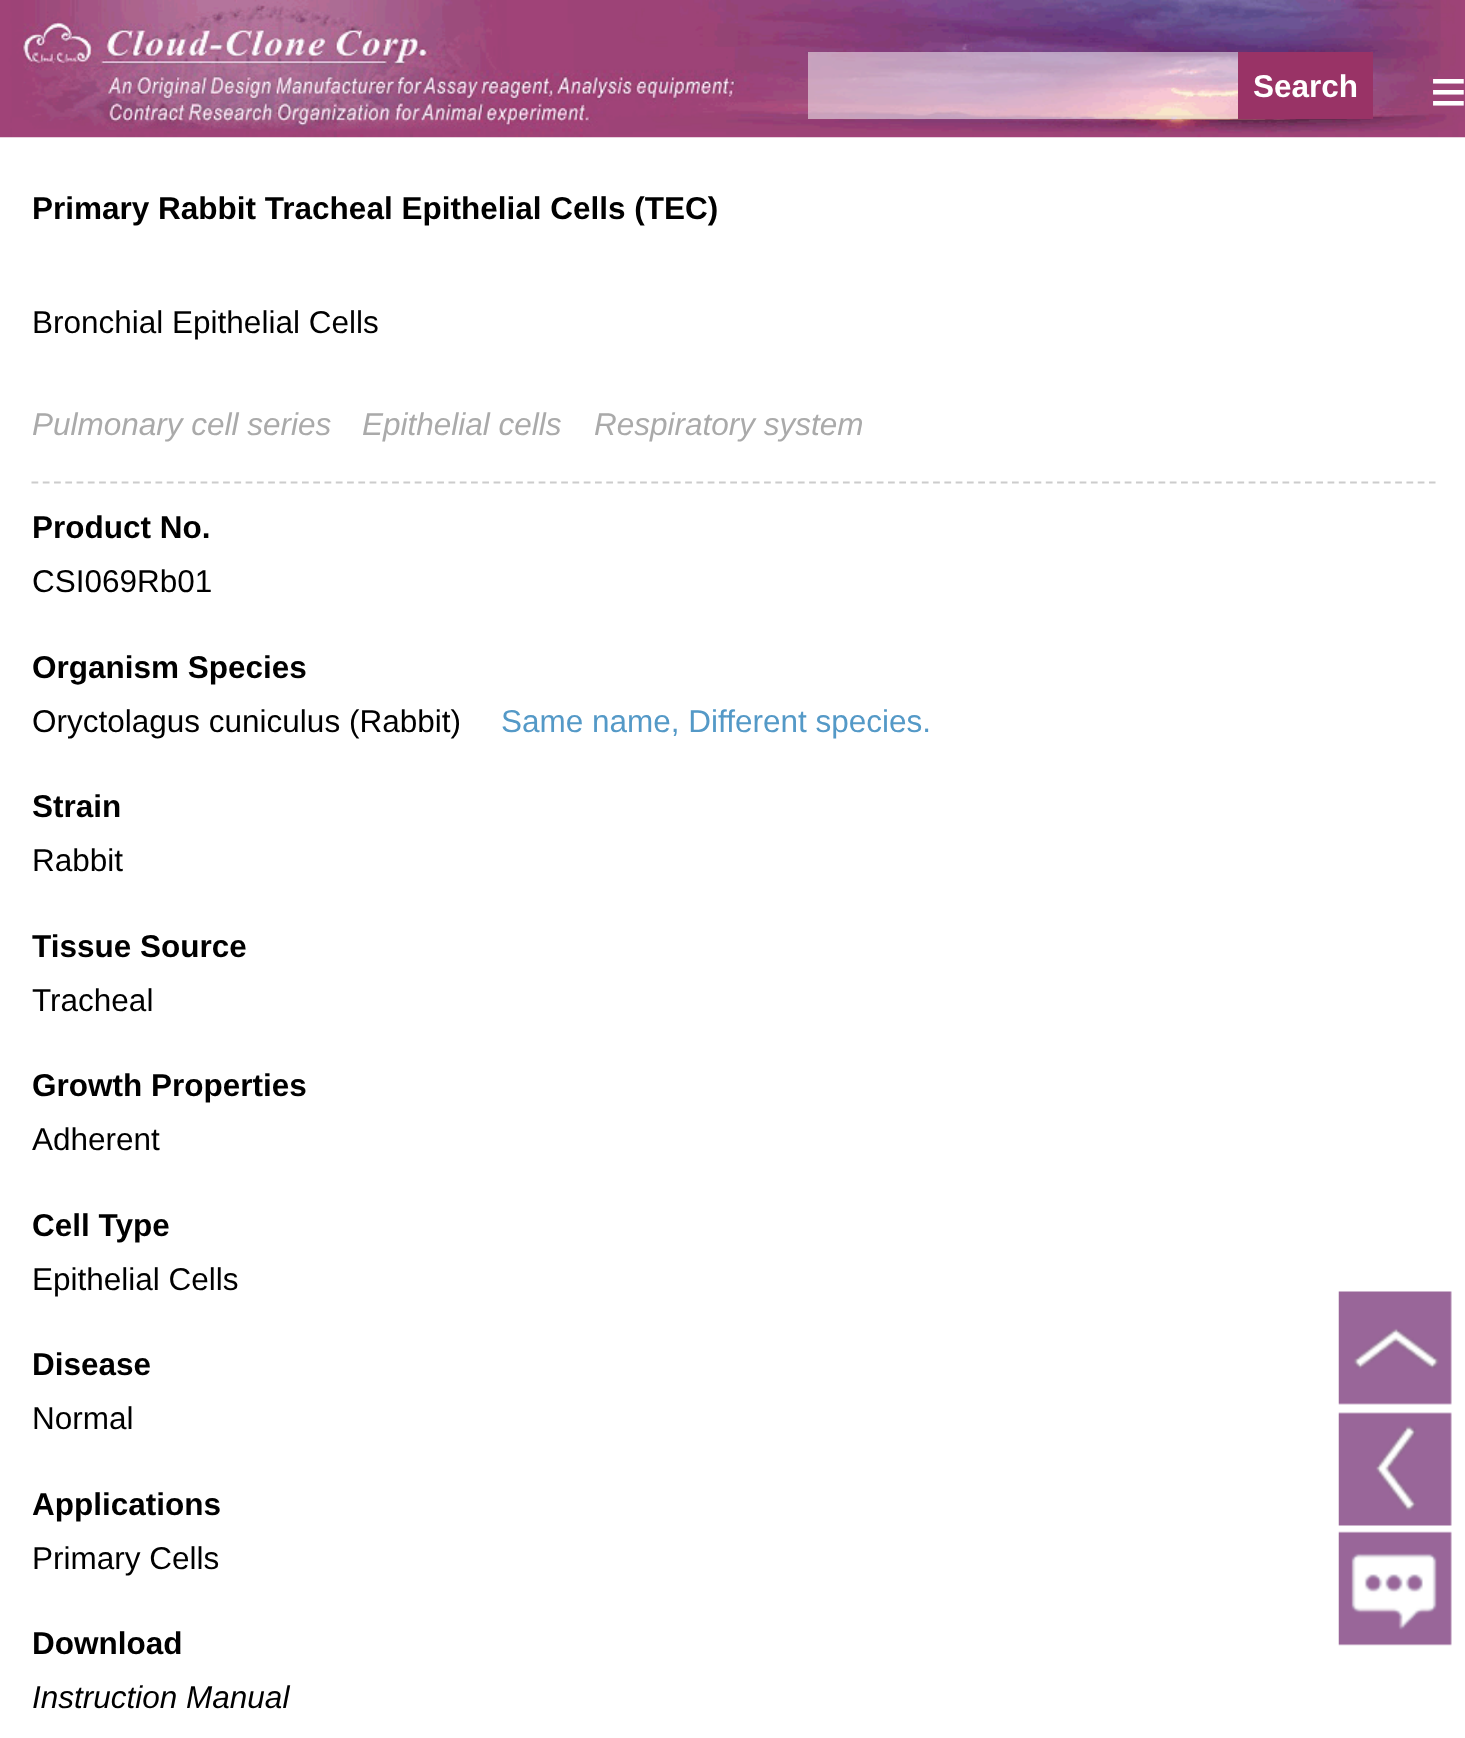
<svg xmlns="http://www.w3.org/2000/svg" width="1465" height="1738">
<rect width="100%" height="100%" fill="#fff"/>
<image x="0" y="0" width="1465" height="138" href="media/1.png"/>
<rect x="808" y="52" width="430" height="67" fill="#ffffff80"/>
<rect x="1238" y="52" width="135" height="67" fill="#936"/>
<text x="1253" y="97" style="font-family:Liberation Sans;font-size:31.5px;font-weight:bold;fill:#fff">Search</text>
<text x="1430" y="113" style="font-family:Liberation Sans;font-size:63px;fill:#fff">≡</text>
<text x="32" y="219" style="font-family:Liberation Sans;font-size:31.5px;font-weight:bold;fill:#000">Primary Rabbit Tracheal Epithelial Cells (TEC)</text>
<text x="32" y="333" style="font-family:Liberation Sans;font-size:31.5px;fill:#000">Bronchial Epithelial Cells</text>
<text x="32" y="435" style="font-family:Liberation Sans;font-size:31.5px;font-style:italic;fill:#aaa">Pulmonary cell series</text>
<text x="362" y="435" style="font-family:Liberation Sans;font-size:31.5px;font-style:italic;fill:#aaa">Epithelial cells</text>
<text x="594" y="435" style="font-family:Liberation Sans;font-size:31.5px;font-style:italic;fill:#aaa">Respiratory system</text>
<path d="M31.5 482.5h1404" fill="none" stroke="#ccc" stroke-width="2.2" stroke-dasharray="6.75 4.52"/>
<text x="32" y="538" style="font-family:Liberation Sans;font-size:31.5px;font-weight:bold;fill:#000">Product No.</text>
<text x="32" y="592" style="font-family:Liberation Sans;font-size:31.5px;fill:#000">CSI069Rb01</text>
<text x="32" y="678" style="font-family:Liberation Sans;font-size:31.5px;font-weight:bold;fill:#000">Organism Species</text>
<text x="32" y="732" style="font-family:Liberation Sans;font-size:31.5px;fill:#000">Oryctolagus cuniculus (Rabbit)</text>
<text x="501" y="732" style="font-family:Liberation Sans;font-size:31.5px;fill:#5499c7">Same name, Different species.</text>
<text x="32" y="817" style="font-family:Liberation Sans;font-size:31.5px;font-weight:bold;fill:#000">Strain</text>
<text x="32" y="871" style="font-family:Liberation Sans;font-size:31.5px;fill:#000">Rabbit</text>
<text x="32" y="957" style="font-family:Liberation Sans;font-size:31.5px;font-weight:bold;fill:#000">Tissue Source</text>
<text x="32" y="1011" style="font-family:Liberation Sans;font-size:31.5px;fill:#000">Tracheal</text>
<text x="32" y="1096" style="font-family:Liberation Sans;font-size:31.5px;font-weight:bold;fill:#000">Growth Properties</text>
<text x="32" y="1150" style="font-family:Liberation Sans;font-size:31.5px;fill:#000">Adherent</text>
<text x="32" y="1236" style="font-family:Liberation Sans;font-size:31.5px;font-weight:bold;fill:#000">Cell Type</text>
<text x="32" y="1290" style="font-family:Liberation Sans;font-size:31.5px;fill:#000">Epithelial Cells</text>
<text x="32" y="1375" style="font-family:Liberation Sans;font-size:31.5px;font-weight:bold;fill:#000">Disease</text>
<text x="32" y="1429" style="font-family:Liberation Sans;font-size:31.5px;fill:#000">Normal</text>
<text x="32" y="1515" style="font-family:Liberation Sans;font-size:31.5px;font-weight:bold;fill:#000">Applications</text>
<text x="32" y="1569" style="font-family:Liberation Sans;font-size:31.5px;fill:#000">Primary Cells</text>
<text x="32" y="1654" style="font-family:Liberation Sans;font-size:31.5px;font-weight:bold;fill:#000">Download</text>
<text x="32" y="1708" style="font-family:Liberation Sans;font-size:31.5px;font-style:italic;fill:#000">Instruction Manual</text>
<image x="1338" y="1291" width="114" height="114" href="media/2.png"/>
<image x="1338" y="1412" width="114" height="114" href="media/3.png"/>
<image x="1338" y="1531" width="114" height="115" href="media/4.png"/>
</svg>
